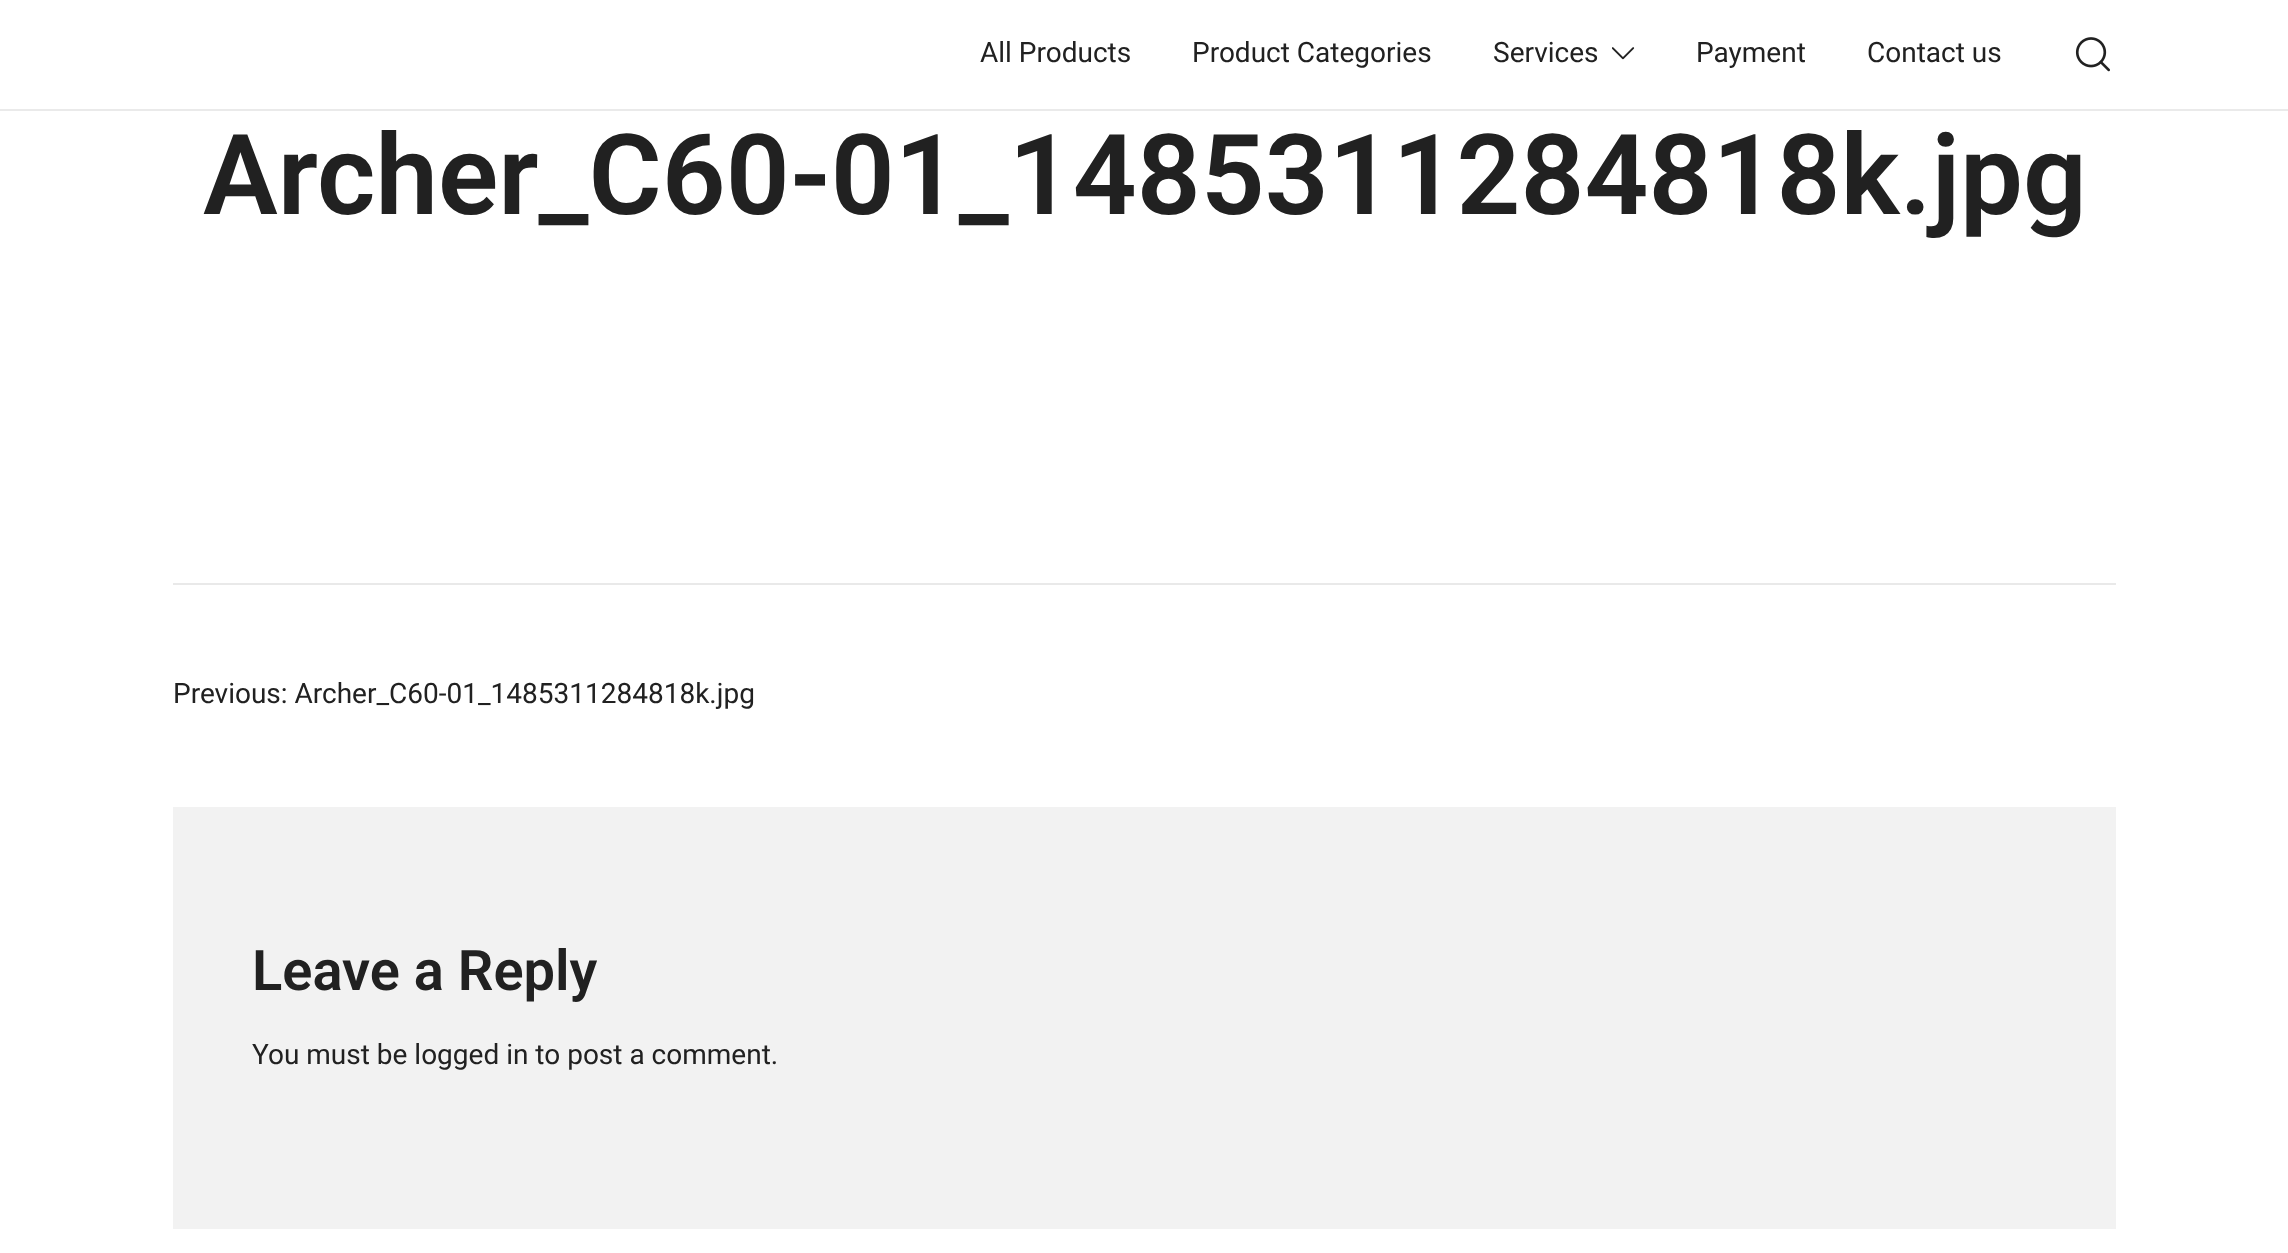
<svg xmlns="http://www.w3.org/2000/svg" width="2288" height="1253">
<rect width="100%" height="100%" fill="#fff"/>
<rect y="109" width="2288" height="2" fill="#eaeaea"/>
<text x="980" y="62" style="font-family:Roboto;font-size:28px;fill:#212121">All Products</text>
<text x="1192" y="62" style="font-family:Roboto;font-size:28px;fill:#212121">Product Categories</text>
<text x="1493" y="62" style="font-family:Roboto;font-size:28px;fill:#212121">Services</text>
<image x="1612" y="47" width="23" height="13" href="media/1.png"/>
<text x="1696" y="62" style="font-family:Roboto;font-size:28px;fill:#212121">Payment</text>
<text x="1867" y="62" style="font-family:Roboto;font-size:28px;fill:#212121">Contact us</text>
<image x="2075" y="37" width="35" height="35" href="media/2.png"/>
<text x="203" y="214" style="font-family:Roboto;font-size:112px;font-weight:600;fill:#212121">Archer_C60-01_1485311284818k.jpg</text>
<rect x="173" y="583" width="1943" height="2" fill="#e9e9e9"/>
<text x="173" y="703" style="font-family:Roboto;font-size:28px;fill:#212121">Previous: Archer_C60-01_1485311284818k.jpg</text>
<rect x="173" y="807" width="1943" height="422" fill="#f2f2f2"/>
<text x="252" y="990" style="font-family:Roboto;font-size:56px;font-weight:600;fill:#212121">Leave a Reply</text>
<text x="252" y="1064" style="font-family:Roboto;font-size:28px;fill:#212121">You must be logged in to post a comment.</text>
</svg>
